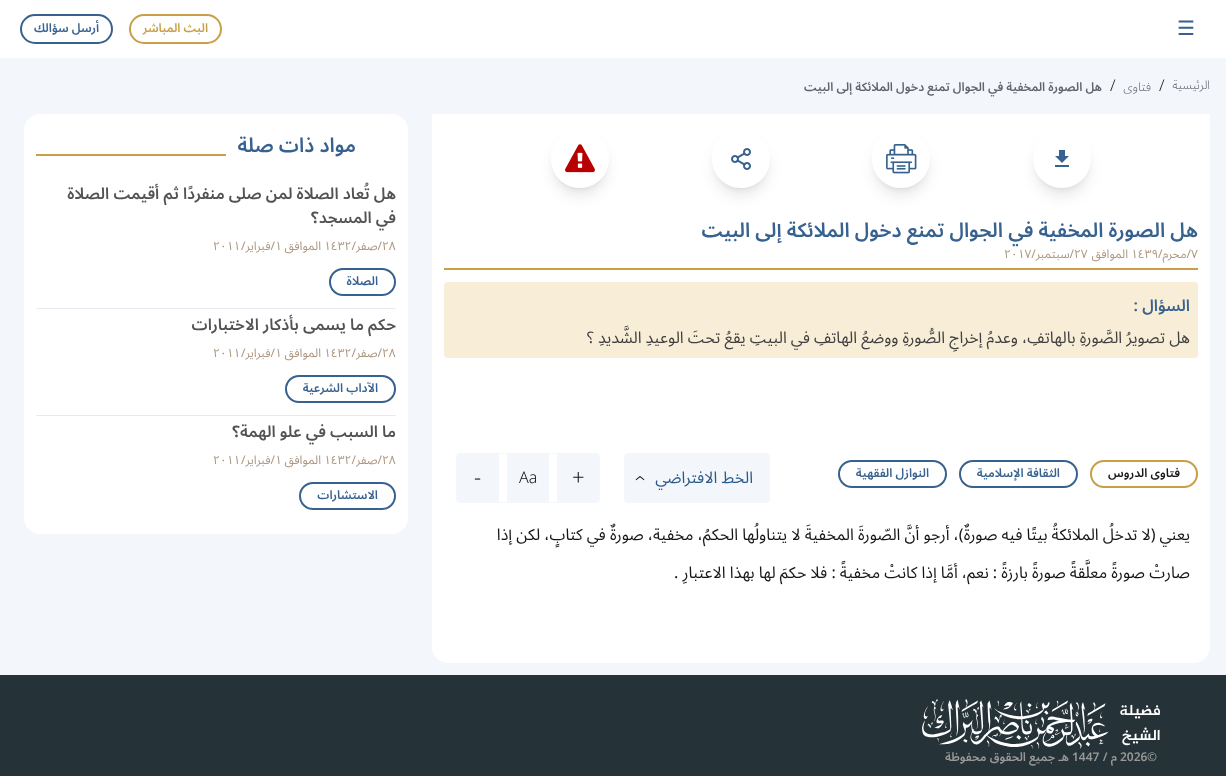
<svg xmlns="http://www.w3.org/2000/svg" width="1226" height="776">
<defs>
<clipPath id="clip1"><path d="M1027 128h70v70h-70zm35 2c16 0 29 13 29 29c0 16-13 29-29 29c-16 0-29-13-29-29c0-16 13-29 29-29z" clip-rule="evenodd"/></clipPath>
<clipPath id="clip2"><path d="M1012 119h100v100h-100zm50 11c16 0 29 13 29 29c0 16-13 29-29 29c-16 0-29-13-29-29c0-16 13-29 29-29z" clip-rule="evenodd"/></clipPath>
<clipPath id="clip3"><path d="M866 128h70v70h-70zm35 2c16 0 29 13 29 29c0 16-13 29-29 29c-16 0-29-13-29-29c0-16 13-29 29-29z" clip-rule="evenodd"/></clipPath>
<clipPath id="clip4"><path d="M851 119h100v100h-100zm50 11c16 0 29 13 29 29c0 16-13 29-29 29c-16 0-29-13-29-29c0-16 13-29 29-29z" clip-rule="evenodd"/></clipPath>
<clipPath id="clip5"><path d="M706 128h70v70h-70zm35 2c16 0 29 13 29 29c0 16-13 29-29 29c-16 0-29-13-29-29c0-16 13-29 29-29z" clip-rule="evenodd"/></clipPath>
<clipPath id="clip6"><path d="M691 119h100v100h-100zm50 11c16 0 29 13 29 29c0 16-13 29-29 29c-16 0-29-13-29-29c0-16 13-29 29-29z" clip-rule="evenodd"/></clipPath>
<clipPath id="clip7"><path d="M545 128h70v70h-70zm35 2c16 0 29 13 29 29c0 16-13 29-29 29c-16 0-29-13-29-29c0-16 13-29 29-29z" clip-rule="evenodd"/></clipPath>
<clipPath id="clip8"><path d="M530 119h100v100h-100zm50 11c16 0 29 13 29 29c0 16-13 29-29 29c-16 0-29-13-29-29c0-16 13-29 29-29z" clip-rule="evenodd"/></clipPath>
</defs>
<rect width="100%" height="100%" fill="#f3f6fa"/>
<rect width="1226" height="58" fill="#fff"/>
<text x="1177" y="35" style="font-family:DejaVu Sans;font-size:20px;fill:#37618f">☰</text>
<rect x="130" y="15" width="91" height="28" rx="14" fill="none" stroke="#c99e47" stroke-width="2"/>
<text x="208" y="32" style="font-family:Noto Sans Arabic;font-size:12px;font-weight:600;direction:rtl;fill:#c99e47">البث المباشر</text>
<rect x="21" y="15" width="91" height="28" rx="14" fill="none" stroke="#37618f" stroke-width="2"/>
<text x="99" y="32" style="font-family:Noto Sans Arabic;font-size:12px;font-weight:600;direction:rtl;fill:#37618f">أرسل سؤالك</text>
<text x="1210" y="89" style="font-family:Noto Sans Arabic;font-size:12px;font-weight:300;direction:rtl;fill:#63636f">الرئيسية</text>
<text x="1159" y="91" style="font-family:Noto Sans Arabic;font-size:16px;font-weight:300;fill:#161616">/</text>
<text x="1151" y="91" style="font-family:Noto Sans Arabic;font-size:12px;font-weight:300;direction:rtl;fill:#63636f">فتاوى</text>
<text x="1110" y="91" style="font-family:Noto Sans Arabic;font-size:16px;font-weight:300;fill:#161616">/</text>
<text x="1102" y="91" style="font-family:Noto Sans Arabic;font-size:12px;font-weight:600;direction:rtl;fill:#63636f">هل الصورة المخفية في الجوال تمنع دخول الملائكة إلى البيت</text>
<rect x="432" y="114" width="778" height="549" rx="16" fill="#fff"/>
<rect x="432" y="114" width="778" height="14" fill="#fff"/>
<g clip-path="url(#clip1)">
<rect x="1037" y="138" width="50" height="50" rx="25" fill="#0000001a" filter="blur(3px)"/>
</g>
<g clip-path="url(#clip2)">
<rect x="1036" y="143" width="52" height="52" rx="26" fill="#0000001a" filter="blur(7.5px)"/>
</g>
<image x="1055" y="150" width="14" height="17" href="media/1.png"/>
<g clip-path="url(#clip3)">
<rect x="876" y="138" width="50" height="50" rx="25" fill="#0000001a" filter="blur(3px)"/>
</g>
<g clip-path="url(#clip4)">
<rect x="875" y="143" width="52" height="52" rx="26" fill="#0000001a" filter="blur(7.5px)"/>
</g>
<image x="886" y="144" width="31" height="30" href="media/2.png"/>
<g clip-path="url(#clip5)">
<rect x="716" y="138" width="50" height="50" rx="25" fill="#0000001a" filter="blur(3px)"/>
</g>
<g clip-path="url(#clip6)">
<rect x="715" y="143" width="52" height="52" rx="26" fill="#0000001a" filter="blur(7.5px)"/>
</g>
<image x="731" y="148" width="20" height="22" href="media/3.png"/>
<g clip-path="url(#clip7)">
<rect x="555" y="138" width="50" height="50" rx="25" fill="#0000001a" filter="blur(3px)"/>
</g>
<g clip-path="url(#clip8)">
<rect x="554" y="143" width="52" height="52" rx="26" fill="#0000001a" filter="blur(7.5px)"/>
</g>
<image x="565" y="144" width="30" height="29" href="media/4.png"/>
<rect x="444" y="268" width="754" height="2" fill="#c99e47"/>
<text x="1198" y="237" style="font-family:Noto Sans Arabic;font-size:20px;font-weight:600;direction:rtl;fill:#37618f">هل الصورة المخفية في الجوال تمنع دخول الملائكة إلى البيت</text>
<text x="1191" y="258" style="font-family:Noto Sans Arabic;font-size:12px;fill:#ad9780">٧</text>
<text x="1191" y="258" style="font-family:Noto Sans Arabic;font-size:12px;direction:rtl;fill:#ad9780">/محرم/</text>
<text x="1131" y="258" style="font-family:Noto Sans Arabic;font-size:12px;fill:#ad9780">١٤٣٩</text>
<text x="1128" y="258" style="font-family:Noto Sans Arabic;font-size:12px;direction:rtl;fill:#ad9780">الموافق</text>
<text x="1074" y="258" style="font-family:Noto Sans Arabic;font-size:12px;fill:#ad9780">٢٧</text>
<text x="1004" y="258" style="font-family:Noto Sans Arabic;font-size:12px;fill:#ad9780">٢٠١٧</text>
<text x="1074" y="258" style="font-family:Noto Sans Arabic;font-size:12px;direction:rtl;fill:#ad9780">/سبتمبر/</text>
<rect x="444" y="282" width="754" height="76" rx="4" fill="#f8edd7"/>
<text x="1190" y="311" style="font-family:Noto Sans Arabic;font-size:16px;font-weight:600;direction:rtl;fill:#37618f">السؤال :</text>
<text x="1190" y="343" style="font-family:Noto Sans Arabic;font-size:16px;direction:rtl;fill:#3f3f3f">هل تصويرُ الصَّورةِ بالهاتفِ، وعدمُ إخراجِ الصُّورةِ ووضعُ الهاتفِ في البيتِ يقعُ تحتَ الوعيدِ الشَّديدِ ؟</text>
<rect x="1091" y="461" width="106" height="26" rx="13" fill="none" stroke="#c99e47" stroke-width="2"/>
<text x="1180" y="477" style="font-family:Noto Sans Arabic;font-size:12px;font-weight:600;direction:rtl;fill:#161616">فتاوى الدروس</text>
<rect x="960" y="461" width="117" height="26" rx="13" fill="none" stroke="#37618f" stroke-width="2"/>
<text x="1060" y="477" style="font-family:Noto Sans Arabic;font-size:12px;font-weight:600;direction:rtl;fill:#37618f">الثقافة الإسلامية</text>
<rect x="839" y="461" width="107" height="26" rx="13" fill="none" stroke="#37618f" stroke-width="2"/>
<text x="929" y="477" style="font-family:Noto Sans Arabic;font-size:12px;font-weight:600;direction:rtl;fill:#37618f">النوازل الفقهية</text>
<rect x="624.5" y="453.5" width="145" height="49" rx="3.5" fill="#f3f6fa" stroke="#f3f6fa"/>
<text x="753" y="483" style="font-family:Noto Sans Arabic;font-size:16px;direction:rtl;fill:#2a5a89">الخط الافتراضي</text>
<text x="646" y="481" transform="rotate(-90 646 481)" style="font-family:Noto Sans Arabic;font-size:22px;font-weight:300;fill:#161616">›</text>
<rect x="456.5" y="453.5" width="143" height="49" rx="3.5" fill="none" stroke="#f3f6fa"/>
<path d="M557 454h38c2 0 4 2 4 4v40c0 2-2 4-4 4h-38z" fill="#f3f6fa"/>
<text x="572" y="485" style="font-family:Noto Sans Arabic;font-size:22px;font-weight:300;fill:#161616">+</text>
<rect x="507" y="454" width="42" height="48" fill="#f3f6fa"/>
<text x="519" y="483" style="font-family:Noto Sans Arabic;font-size:16px;font-weight:300;fill:#161616">Aa</text>
<path d="M461 454h38v48h-38c-2 0-4-2-4-4v-40c0-2 2-4 4-4z" fill="#f3f6fa"/>
<text x="474" y="485" style="font-family:Noto Sans Arabic;font-size:22px;font-weight:300;fill:#161616">-</text>
<text x="1190" y="540" style="font-family:Noto Sans Arabic;font-size:16px;direction:rtl;fill:#161616">يعني (لا تدخلُ الملائكةُ بيتًا فيه صورةٌ)، أرجو أنَّ الصّورةَ المخفيةَ لا يتناولُها الحكمُ، مخفية، صورةٌ في كتابٍ، لكن إذا</text>
<text x="1190" y="578" style="font-family:Noto Sans Arabic;font-size:16px;direction:rtl;fill:#161616">صارتْ صورةً معلَّقةً صورةً بارزةً : نعم، أمَّا إذا كانتْ مخفيةً : فلا حكمَ لها بهذا الاعتبارِ .</text>
<rect x="24" y="114" width="384" height="420" rx="16" fill="#fff"/>
<text x="356" y="152" style="font-family:Noto Sans Arabic;font-size:20px;font-weight:600;direction:rtl;fill:#37618f">مواد ذات صلة</text>
<rect x="36" y="154" width="190" height="2" fill="#c99e47"/>
<rect x="36" y="308" width="360" height="1" fill="#e6ebf2"/>
<text x="396" y="199" style="font-family:Noto Sans Arabic;font-size:16px;font-weight:600;direction:rtl;fill:#525252">هل تُعاد الصلاة لمن صلى منفردًا ثم أقيمت الصلاة</text>
<text x="396" y="223" style="font-family:Noto Sans Arabic;font-size:16px;font-weight:600;direction:rtl;fill:#525252">في المسجد؟</text>
<text x="382" y="250" style="font-family:Noto Sans Arabic;font-size:12px;fill:#ad9780">٢٨</text>
<text x="382" y="250" style="font-family:Noto Sans Arabic;font-size:12px;direction:rtl;fill:#ad9780">/صفر/</text>
<text x="324" y="250" style="font-family:Noto Sans Arabic;font-size:12px;fill:#ad9780">١٤٣٢</text>
<text x="321" y="250" style="font-family:Noto Sans Arabic;font-size:12px;direction:rtl;fill:#ad9780">الموافق</text>
<text x="275" y="250" style="font-family:Noto Sans Arabic;font-size:12px;fill:#ad9780">١</text>
<text x="275" y="250" style="font-family:Noto Sans Arabic;font-size:12px;direction:rtl;fill:#ad9780">/فبراير/</text>
<text x="213" y="250" style="font-family:Noto Sans Arabic;font-size:12px;fill:#ad9780">٢٠١١</text>
<rect x="330" y="269" width="65" height="26" rx="13" fill="none" stroke="#37618f" stroke-width="2"/>
<text x="378" y="285" style="font-family:Noto Sans Arabic;font-size:12px;font-weight:600;direction:rtl;fill:#37618f">الصلاة</text>
<rect x="36" y="415" width="360" height="1" fill="#e6ebf2"/>
<text x="396" y="330" style="font-family:Noto Sans Arabic;font-size:16px;font-weight:600;direction:rtl;fill:#525252">حكم ما يسمى بأذكار الاختبارات</text>
<text x="382" y="357" style="font-family:Noto Sans Arabic;font-size:12px;fill:#ad9780">٢٨</text>
<text x="382" y="357" style="font-family:Noto Sans Arabic;font-size:12px;direction:rtl;fill:#ad9780">/صفر/</text>
<text x="324" y="357" style="font-family:Noto Sans Arabic;font-size:12px;fill:#ad9780">١٤٣٢</text>
<text x="321" y="357" style="font-family:Noto Sans Arabic;font-size:12px;direction:rtl;fill:#ad9780">الموافق</text>
<text x="275" y="357" style="font-family:Noto Sans Arabic;font-size:12px;fill:#ad9780">١</text>
<text x="275" y="357" style="font-family:Noto Sans Arabic;font-size:12px;direction:rtl;fill:#ad9780">/فبراير/</text>
<text x="213" y="357" style="font-family:Noto Sans Arabic;font-size:12px;fill:#ad9780">٢٠١١</text>
<rect x="286" y="376" width="109" height="26" rx="13" fill="none" stroke="#37618f" stroke-width="2"/>
<text x="378" y="392" style="font-family:Noto Sans Arabic;font-size:12px;font-weight:600;direction:rtl;fill:#37618f">الآداب الشرعية</text>
<text x="396" y="437" style="font-family:Noto Sans Arabic;font-size:16px;font-weight:600;direction:rtl;fill:#525252">ما السبب في علو الهمة؟</text>
<text x="382" y="464" style="font-family:Noto Sans Arabic;font-size:12px;fill:#ad9780">٢٨</text>
<text x="382" y="464" style="font-family:Noto Sans Arabic;font-size:12px;direction:rtl;fill:#ad9780">/صفر/</text>
<text x="324" y="464" style="font-family:Noto Sans Arabic;font-size:12px;fill:#ad9780">١٤٣٢</text>
<text x="321" y="464" style="font-family:Noto Sans Arabic;font-size:12px;direction:rtl;fill:#ad9780">الموافق</text>
<text x="275" y="464" style="font-family:Noto Sans Arabic;font-size:12px;fill:#ad9780">١</text>
<text x="275" y="464" style="font-family:Noto Sans Arabic;font-size:12px;direction:rtl;fill:#ad9780">/فبراير/</text>
<text x="213" y="464" style="font-family:Noto Sans Arabic;font-size:12px;fill:#ad9780">٢٠١١</text>
<rect x="300" y="483" width="95" height="26" rx="13" fill="none" stroke="#37618f" stroke-width="2"/>
<text x="378" y="499" style="font-family:Noto Sans Arabic;font-size:12px;font-weight:600;direction:rtl;fill:#37618f">الاستشارات</text>
<rect y="675" width="1226" height="101" fill="#253238"/>
<image x="922" y="699" width="238" height="50" href="media/5.png"/>
<text x="1147" y="761" style="font-family:Noto Sans Arabic;font-size:12px;font-weight:600;fill:#999">©</text>
<text x="1120" y="761" style="font-family:Noto Sans Arabic;font-size:12px;font-weight:600;fill:#999">2026</text>
<text x="1117" y="761" style="font-family:Noto Sans Arabic;font-size:12px;font-weight:600;direction:rtl;fill:#999">م /</text>
<text x="1072" y="761" style="font-family:Noto Sans Arabic;font-size:12px;font-weight:600;fill:#999">1447</text>
<text x="1069" y="761" style="font-family:Noto Sans Arabic;font-size:12px;font-weight:600;direction:rtl;fill:#999">هـ جميع الحقوق محفوظة</text>
</svg>
